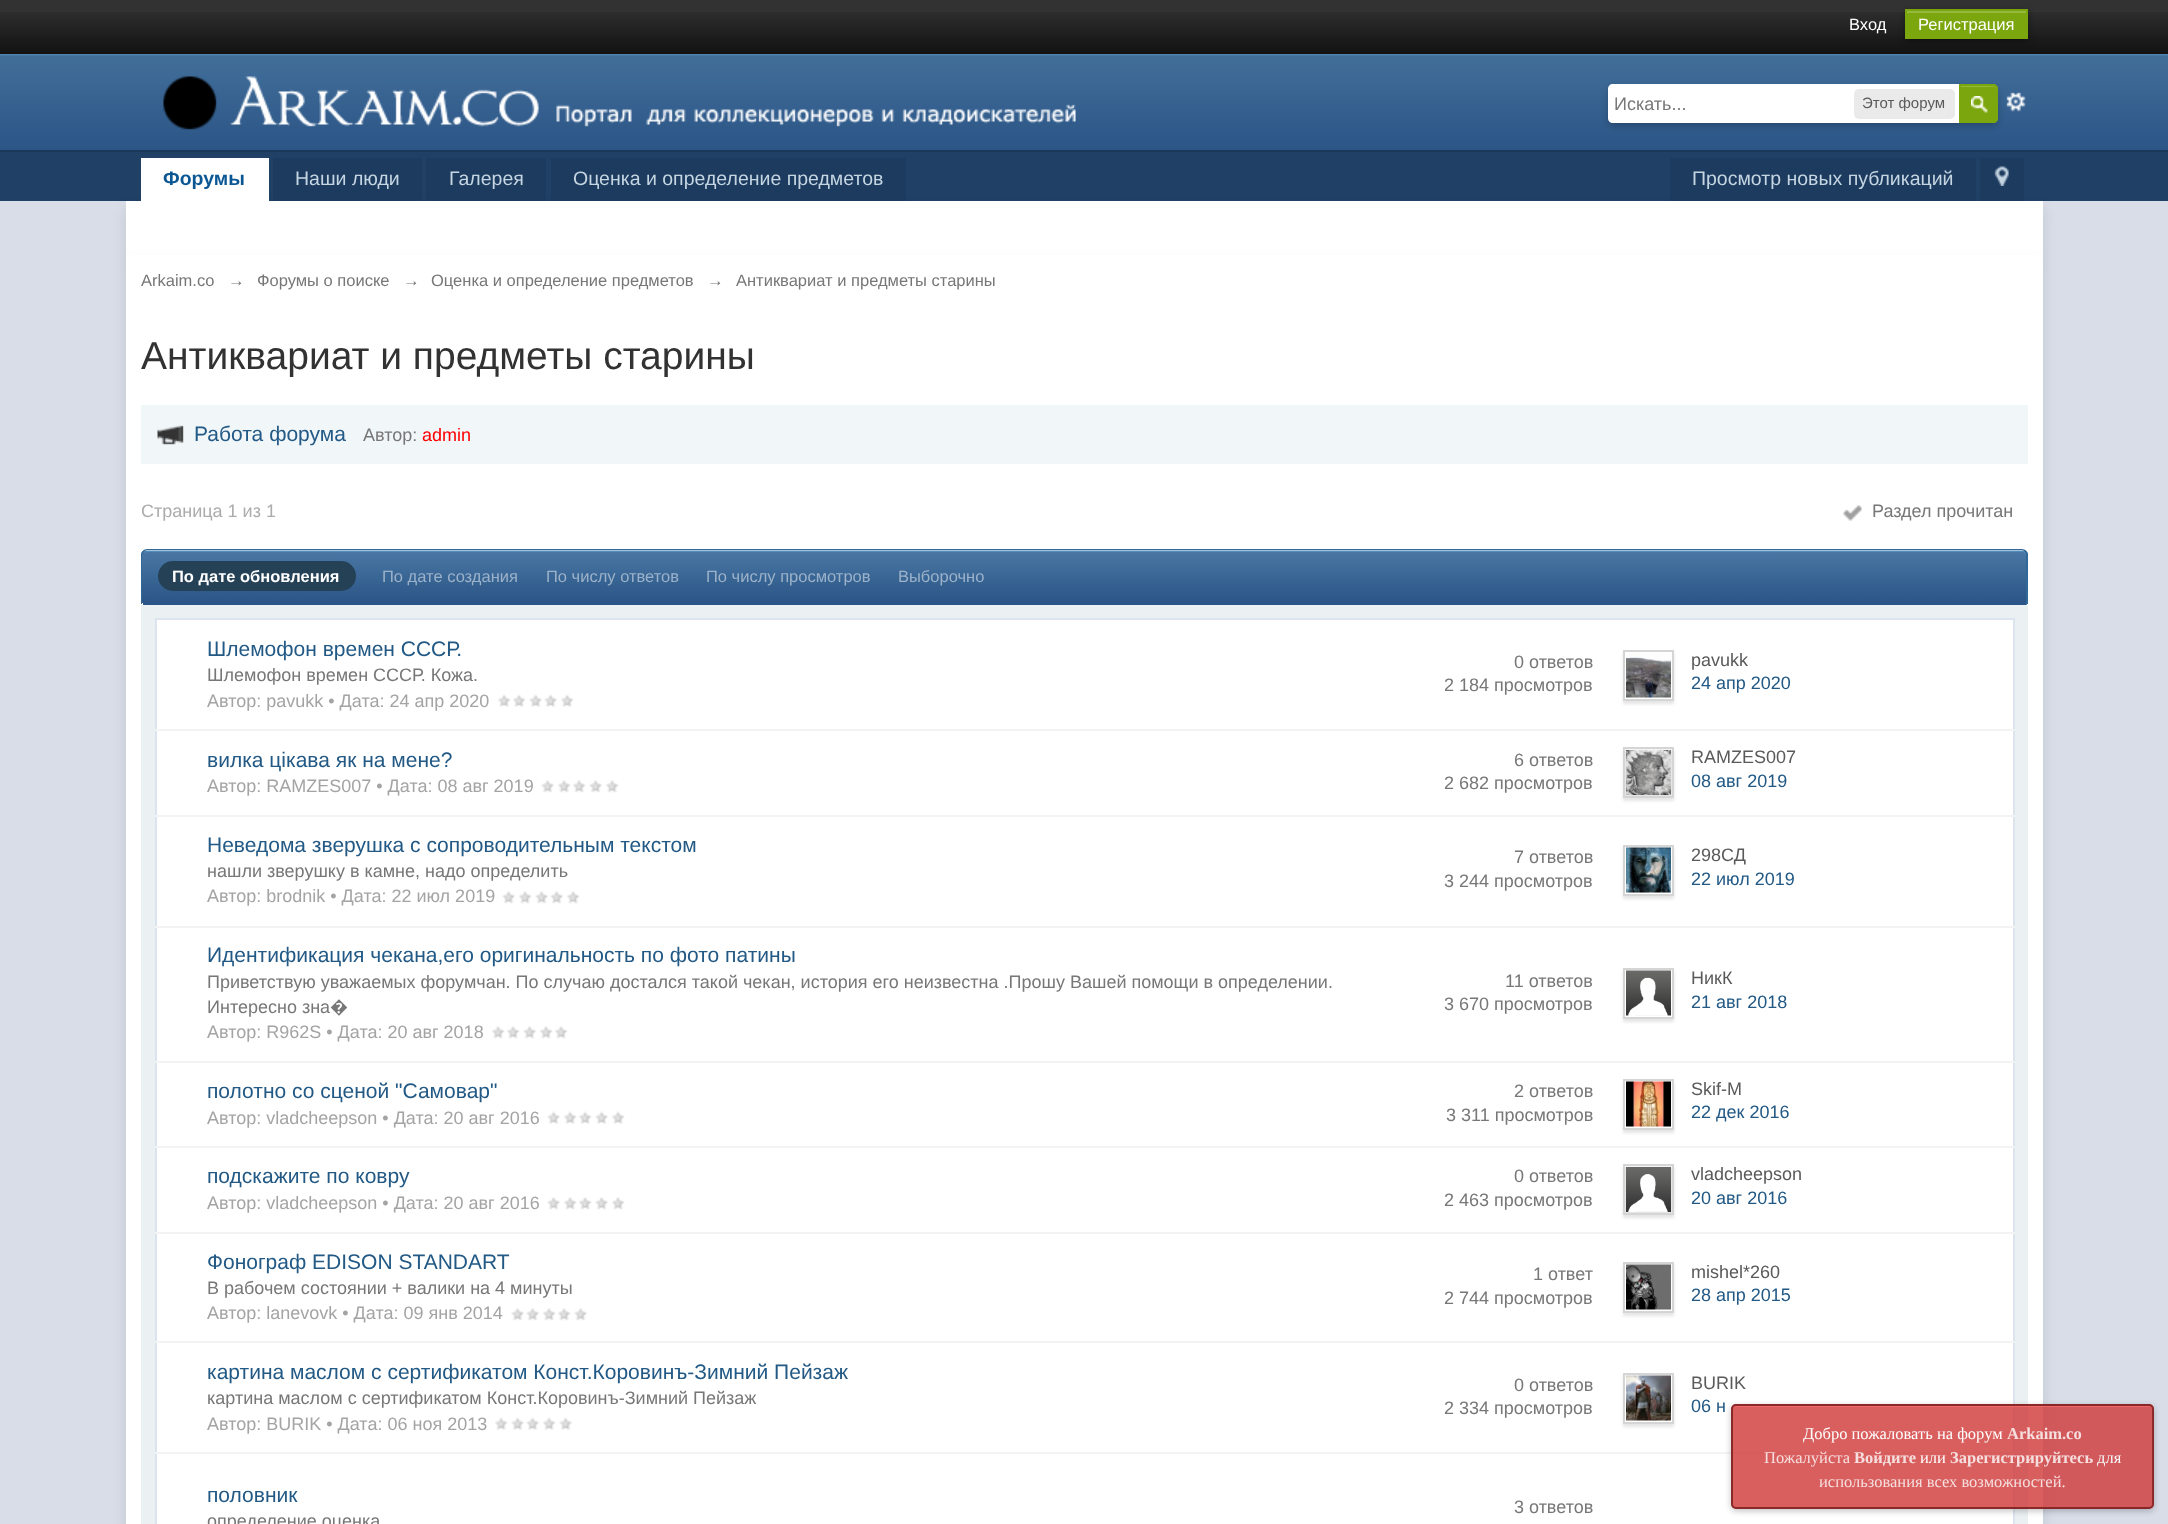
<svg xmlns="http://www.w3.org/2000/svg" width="2168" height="1524">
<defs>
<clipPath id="clip1"><path d="M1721 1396h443v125h-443zm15 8h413c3 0 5 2 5 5v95c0 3-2 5-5 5h-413c-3 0-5-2-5-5v-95c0-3 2-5 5-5z" clip-rule="evenodd"/></clipPath>
</defs>
<rect width="100%" height="100%" fill="#d8dde8"/>
<rect width="2168" height="12" fill="#323232"/>
<image x="0" y="12" width="2168" height="42" href="media/1.png"/>
<text x="1849" y="30" style="font-family:Liberation Sans;font-size:16.5px;fill:#fff">Вход</text>
<rect x="1905" y="11" width="123" height="30" fill="#00000066" filter="blur(3px)"/>
<rect x="1907" y="13" width="119" height="24" fill="#7ba60d"/>
<rect x="1907" y="11" width="120" height="2" fill="#95b83d"/>
<rect x="1906" y="10" width="121" height="28" fill="none" stroke="#7ba60d" stroke-width="2"/>
<text x="1918" y="30" style="font-family:Liberation Sans;font-size:16.5px;fill:#fff">Регистрация</text>
<image x="0" y="54" width="2168" height="96" href="media/2.png"/>
<rect y="150" width="2168" height="2" fill="#1b3759"/>
<image x="163" y="76" width="913" height="54" href="media/3.png"/>
<image x="2006" y="92" width="20" height="20" href="media/5.png"/>
<rect x="1608" y="87" width="390" height="39" rx="6" fill="#00000033" filter="blur(3px)"/>
<path d="M1613 84h379c3.5 0 6 2.5 6 6v27c0 3.5-2.5 6-6 6h-379c-3 0-5-2-5-5v-29c0-3 2-5 5-5z" fill="#fff"/>
<text x="1614" y="110" style="font-family:Liberation Sans;font-size:18px;fill:#777">Искать...</text>
<rect x="1854" y="89" width="101" height="30" rx="5" fill="#eaeaea"/>
<text x="1862" y="108" style="font-family:Liberation Sans;font-size:15px;fill:#5a5a5a">Этот форум</text>
<path d="M1959 84h34c3 0 5 2 5 5v29c0 3-2 5-5 5h-34z" fill="#7ba60d"/>
<image x="1971" y="96" width="17" height="17" href="media/4.png"/>
<path d="M1961 86v1h27.5c3 0 7.5-1.5 7.5 3v31.5c.5-.5 1-1.5 1-2.5v-30c0-1.5-1.5-3-3-3z" fill="#95b83d"/>
<path d="M1960 85h33c2 0 4 2 4 4v29c0 2-2 4-4 4h-33z" fill="none" stroke="#7ba60d" stroke-width="2"/>
<rect y="152" width="2168" height="49" fill="#204066"/>
<rect x="126" y="209" width="1917" height="54" fill="#0000001a" filter="blur(7px)"/>
<rect x="141" y="158" width="128" height="43" fill="#fff"/>
<text x="163" y="185" style="font-family:Liberation Sans;font-size:19.5px;font-weight:bold;fill:#0b5794">Форумы</text>
<rect x="273" y="158" width="149" height="43" fill="#1c3b5f"/>
<text x="295" y="185" style="font-family:Liberation Sans;font-size:19.5px;fill:#c5d5e2">Наши люди</text>
<rect x="426" y="158" width="120" height="43" fill="#1c3b5f"/>
<text x="449" y="185" style="font-family:Liberation Sans;font-size:19.5px;fill:#c5d5e2">Галерея</text>
<rect x="551" y="158" width="355" height="43" fill="#1c3b5f"/>
<text x="573" y="185" style="font-family:Liberation Sans;font-size:19.5px;fill:#c5d5e2">Оценка и определение предметов</text>
<rect x="1670" y="158" width="306" height="43" fill="#1c3b5f"/>
<text x="1692" y="185" style="font-family:Liberation Sans;font-size:19.5px;fill:#c5d5e2">Просмотр новых публикаций</text>
<rect x="1980" y="158" width="44" height="43" fill="#1c3b5f"/>
<image x="1994" y="166" width="15" height="20" href="media/6.png"/>
<rect x="126" y="201" width="1917" height="54" fill="#fff"/>
<rect x="126" y="263" width="1917" height="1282" fill="#0000001a" filter="blur(7px)"/>
<rect x="126" y="255" width="1917" height="1269" fill="#fff"/>
<text x="141" y="286" style="font-family:Liberation Sans;font-size:16.5px;fill:#777">Arkaim.co</text>
<text x="228" y="286" style="font-family:Liberation Sans;font-size:16.5px;fill:#777">→</text>
<text x="257" y="286" style="font-family:Liberation Sans;font-size:16.5px;fill:#777">Форумы о поиске</text>
<text x="403" y="286" style="font-family:Liberation Sans;font-size:16.5px;fill:#777">→</text>
<text x="431" y="286" style="font-family:Liberation Sans;font-size:16.5px;fill:#777">Оценка и определение предметов</text>
<text x="707" y="286" style="font-family:Liberation Sans;font-size:16.5px;fill:#777">→</text>
<text x="736" y="286" style="font-family:Liberation Sans;font-size:16.5px;fill:#777">Антиквариат и предметы старины</text>
<text x="141" y="369" style="font-family:Liberation Sans;font-size:39px;fill:#323232">Антиквариат и предметы старины</text>
<rect x="141" y="405" width="1887" height="59" fill="#f1f6f9"/>
<image x="157" y="425" width="27" height="20" href="media/7.png"/>
<text x="194" y="441" style="font-family:Liberation Sans;font-size:21px;fill:#225985">Работа форума</text>
<text x="363" y="441" style="font-family:Liberation Sans;font-size:18px;fill:#777">Автор:</text>
<text x="422" y="441" style="font-family:Liberation Sans;font-size:18px;fill:#f00">admin</text>
<text x="141" y="517" style="font-family:Liberation Sans;font-size:18px;fill:#acacac">Страница 1 из 1</text>
<image x="1843" y="505" width="19" height="16" href="media/8.png"/>
<text x="1872" y="517" style="font-family:Liberation Sans;font-size:18px;fill:#777">Раздел прочитан</text>
<path d="M148 551h1874c3 0 5 2 5 5v49h-1884v-49c0-3 2-5 5-5z" fill="#2c5687"/>
<image x="141" y="550" width="1887" height="53" href="media/9.png"/>
<path d="M147 552h1875c2 0 4 2 4 4v49h1v-49c0-3-2-5-5-5h-1874c-2 0-3 1-4 2z" fill="#528cbc"/>
<path d="M147 549h1875c3 0 6 3 6 6v49h-1887v-49c0-3 3-6 6-6zm0 1h1875c2 0 4 3 4 5v49h-1884v-49c0-2 3-5 5-5z" fill="#316897" fill-rule="evenodd"/>
<rect x="158" y="561" width="198" height="30" rx="15" fill="#244156"/>
<text x="172" y="582" style="font-family:Liberation Sans;font-size:16.5px;font-weight:bold;fill:#fff">По дате обновления</text>
<text x="382" y="582" style="font-family:Liberation Sans;font-size:16.5px;fill:#9cb2ca">По дате создания</text>
<text x="546" y="582" style="font-family:Liberation Sans;font-size:16.5px;fill:#9cb2ca">По числу ответов</text>
<text x="706" y="582" style="font-family:Liberation Sans;font-size:16.5px;fill:#9cb2ca">По числу просмотров</text>
<text x="898" y="582" style="font-family:Liberation Sans;font-size:16.5px;fill:#9cb2ca">Выборочно</text>
<rect x="141" y="605" width="1887" height="919" fill="#ebf0f3"/>
<rect x="156" y="619" width="1858" height="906" fill="#fff" stroke="#dbe4ef" stroke-width="2"/>
<text x="207" y="656" style="font-family:Liberation Sans;font-size:21px;fill:#225985">Шлемофон времен СССР.</text>
<text x="207" y="681" style="font-family:Liberation Sans;font-size:18px;fill:#777">Шлемофон времен СССР. Кожа.</text>
<text x="207" y="707" style="font-family:Liberation Sans;font-size:18px;fill:#a4a4a4">Автор: pavukk • Дата: 24 апр 2020</text>
<image x="498" y="694" width="13" height="13" href="media/10.png"/>
<image x="513" y="694" width="13" height="13" href="media/11.png"/>
<image x="529" y="694" width="13" height="13" href="media/12.png"/>
<image x="544" y="694" width="13" height="13" href="media/12.png"/>
<image x="561" y="694" width="13" height="13" href="media/10.png"/>
<text x="1514" y="668" style="font-family:Liberation Sans;font-size:18px;fill:#777">0 ответов</text>
<text x="1444" y="691" style="font-family:Liberation Sans;font-size:18px;fill:#777">2 184 просмотров</text>
<rect x="155" y="729" width="1860" height="2" fill="#f3f3f3"/>
<rect x="1623" y="653" width="51" height="51" fill="#0000001a" filter="blur(1.5px)"/>
<rect x="1624" y="651" width="49" height="49" fill="#fff" stroke="#d5d5d5" stroke-width="2"/>
<image x="1626" y="653" width="45" height="45" href="media/13.png"/>
<text x="1691" y="666" style="font-family:Liberation Sans;font-size:18px;fill:#5a5a5a">pavukk</text>
<text x="1691" y="689" style="font-family:Liberation Sans;font-size:18px;fill:#225985">24 апр 2020</text>
<text x="207" y="767" style="font-family:Liberation Sans;font-size:21px;fill:#225985">вилка цікава як на мене?</text>
<text x="207" y="792" style="font-family:Liberation Sans;font-size:18px;fill:#a4a4a4">Автор: RAMZES007 • Дата: 08 авг 2019</text>
<image x="541" y="780" width="13" height="13" href="media/14.png"/>
<image x="558" y="780" width="13" height="13" href="media/15.png"/>
<image x="573" y="780" width="13" height="13" href="media/16.png"/>
<image x="589" y="780" width="13" height="13" href="media/14.png"/>
<image x="606" y="780" width="13" height="13" href="media/16.png"/>
<text x="1514" y="766" style="font-family:Liberation Sans;font-size:18px;fill:#777">6 ответов</text>
<text x="1444" y="789" style="font-family:Liberation Sans;font-size:18px;fill:#777">2 682 просмотров</text>
<rect x="155" y="815" width="1860" height="2" fill="#f3f3f3"/>
<rect x="1623" y="750" width="51" height="51" fill="#0000001a" filter="blur(1.5px)"/>
<rect x="1624" y="748" width="49" height="49" fill="none" stroke="#d5d5d5" stroke-width="2"/>
<image x="1626" y="750" width="45" height="45" href="media/17.png"/>
<text x="1691" y="763" style="font-family:Liberation Sans;font-size:18px;fill:#5a5a5a">RAMZES007</text>
<text x="1691" y="787" style="font-family:Liberation Sans;font-size:18px;fill:#225985">08 авг 2019</text>
<text x="207" y="852" style="font-family:Liberation Sans;font-size:21px;fill:#225985">Неведома зверушка с сопроводительным текстом</text>
<text x="207" y="877" style="font-family:Liberation Sans;font-size:18px;fill:#777">нашли зверушку в камне, надо определить</text>
<text x="207" y="902" style="font-family:Liberation Sans;font-size:18px;fill:#a4a4a4">Автор: brodnik • Дата: 22 июл 2019</text>
<image x="502" y="891" width="13" height="13" href="media/18.png"/>
<image x="519" y="891" width="13" height="13" href="media/15.png"/>
<image x="535" y="891" width="13" height="13" href="media/14.png"/>
<image x="550" y="891" width="13" height="13" href="media/14.png"/>
<image x="567" y="891" width="13" height="13" href="media/16.png"/>
<text x="1514" y="863" style="font-family:Liberation Sans;font-size:18px;fill:#777">7 ответов</text>
<text x="1444" y="887" style="font-family:Liberation Sans;font-size:18px;fill:#777">3 244 просмотров</text>
<rect x="155" y="926" width="1860" height="2" fill="#f3f3f3"/>
<rect x="1623" y="848" width="51" height="51" fill="#0000001a" filter="blur(1.5px)"/>
<rect x="1624" y="846" width="49" height="49" fill="#fff" stroke="#d5d5d5" stroke-width="2"/>
<image x="1626" y="847" width="45" height="46" href="media/19.png"/>
<text x="1691" y="861" style="font-family:Liberation Sans;font-size:18px;fill:#5a5a5a">298СД</text>
<text x="1691" y="885" style="font-family:Liberation Sans;font-size:18px;fill:#225985">22 июл 2019</text>
<text x="207" y="962" style="font-family:Liberation Sans;font-size:21px;fill:#225985">Идентификация чекана,его оригинальность по фото патины</text>
<text x="207" y="988" style="font-family:Liberation Sans;font-size:18px;fill:#777">Приветствую уважаемых форумчан. По случаю достался такой чекан, история его неизвестна .Прошу Вашей помощи в определении.</text>
<text x="207" y="1013" style="font-family:Liberation Sans;font-size:18px;fill:#777">Интересно зна</text>
<text x="330" y="1013" style="font-family:Noto Sans;font-size:18px;fill:#777">�</text>
<text x="207" y="1038" style="font-family:Liberation Sans;font-size:18px;fill:#a4a4a4">Автор: R962S • Дата: 20 авг 2018</text>
<image x="492" y="1026" width="13" height="13" href="media/16.png"/>
<image x="507" y="1026" width="13" height="13" href="media/20.png"/>
<image x="523" y="1026" width="13" height="13" href="media/14.png"/>
<image x="540" y="1026" width="13" height="13" href="media/15.png"/>
<image x="555" y="1026" width="13" height="13" href="media/15.png"/>
<text x="1505" y="987" style="font-family:Liberation Sans;font-size:18px;fill:#777">11 ответов</text>
<text x="1444" y="1010" style="font-family:Liberation Sans;font-size:18px;fill:#777">3 670 просмотров</text>
<rect x="155" y="1061" width="1860" height="2" fill="#f3f3f3"/>
<rect x="1623" y="971" width="51" height="51" fill="#0000001a" filter="blur(1.5px)"/>
<rect x="1624" y="969" width="49" height="49" fill="#fff" stroke="#d5d5d5" stroke-width="2"/>
<image x="1626" y="970" width="45" height="46" href="media/21.png"/>
<text x="1691" y="984" style="font-family:Liberation Sans;font-size:18px;fill:#5a5a5a">НикК</text>
<text x="1691" y="1008" style="font-family:Liberation Sans;font-size:18px;fill:#225985">21 авг 2018</text>
<text x="207" y="1098" style="font-family:Liberation Sans;font-size:21px;fill:#225985">полотно со сценой "Самовар"</text>
<text x="207" y="1124" style="font-family:Liberation Sans;font-size:18px;fill:#a4a4a4">Автор: vladcheepson • Дата: 20 авг 2016</text>
<image x="547" y="1111" width="13" height="13" href="media/12.png"/>
<image x="564" y="1111" width="13" height="13" href="media/10.png"/>
<image x="579" y="1111" width="13" height="13" href="media/10.png"/>
<image x="595" y="1111" width="13" height="13" href="media/12.png"/>
<image x="612" y="1111" width="13" height="13" href="media/11.png"/>
<text x="1514" y="1097" style="font-family:Liberation Sans;font-size:18px;fill:#777">2 ответов</text>
<text x="1446" y="1121" style="font-family:Liberation Sans;font-size:18px;fill:#777">3 311 просмотров</text>
<rect x="155" y="1146" width="1860" height="2" fill="#f3f3f3"/>
<rect x="1623" y="1082" width="51" height="51" fill="#0000001a" filter="blur(1.5px)"/>
<rect x="1624" y="1080" width="49" height="49" fill="#fff" stroke="#d5d5d5" stroke-width="2"/>
<image x="1626" y="1081" width="45" height="46" href="media/22.png"/>
<text x="1691" y="1095" style="font-family:Liberation Sans;font-size:18px;fill:#5a5a5a">Skif-M</text>
<text x="1691" y="1118" style="font-family:Liberation Sans;font-size:18px;fill:#225985">22 дек 2016</text>
<text x="207" y="1183" style="font-family:Liberation Sans;font-size:21px;fill:#225985">подскажите по ковру</text>
<text x="207" y="1209" style="font-family:Liberation Sans;font-size:18px;fill:#a4a4a4">Автор: vladcheepson • Дата: 20 авг 2016</text>
<image x="547" y="1197" width="13" height="13" href="media/14.png"/>
<image x="564" y="1197" width="13" height="13" href="media/16.png"/>
<image x="579" y="1197" width="13" height="13" href="media/16.png"/>
<image x="595" y="1197" width="13" height="13" href="media/14.png"/>
<image x="612" y="1197" width="13" height="13" href="media/15.png"/>
<text x="1514" y="1182" style="font-family:Liberation Sans;font-size:18px;fill:#777">0 ответов</text>
<text x="1444" y="1206" style="font-family:Liberation Sans;font-size:18px;fill:#777">2 463 просмотров</text>
<rect x="155" y="1232" width="1860" height="2" fill="#f3f3f3"/>
<rect x="1623" y="1167" width="51" height="51" fill="#0000001a" filter="blur(1.5px)"/>
<rect x="1624" y="1165" width="49" height="49" fill="none" stroke="#d5d5d5" stroke-width="2"/>
<image x="1626" y="1167" width="45" height="45" href="media/23.png"/>
<text x="1691" y="1180" style="font-family:Liberation Sans;font-size:18px;fill:#5a5a5a">vladcheepson</text>
<text x="1691" y="1204" style="font-family:Liberation Sans;font-size:18px;fill:#225985">20 авг 2016</text>
<text x="207" y="1269" style="font-family:Liberation Sans;font-size:21px;fill:#225985">Фонограф EDISON STANDART</text>
<text x="207" y="1294" style="font-family:Liberation Sans;font-size:18px;fill:#777">В рабочем состоянии + валики на 4 минуты</text>
<text x="207" y="1319" style="font-family:Liberation Sans;font-size:18px;fill:#a4a4a4">Автор: lanevovk • Дата: 09 янв 2014</text>
<image x="511" y="1308" width="13" height="13" href="media/18.png"/>
<image x="526" y="1308" width="13" height="13" href="media/14.png"/>
<image x="543" y="1308" width="13" height="13" href="media/15.png"/>
<image x="558" y="1308" width="13" height="13" href="media/15.png"/>
<image x="574" y="1308" width="13" height="13" href="media/14.png"/>
<text x="1533" y="1280" style="font-family:Liberation Sans;font-size:18px;fill:#777">1 ответ</text>
<text x="1444" y="1304" style="font-family:Liberation Sans;font-size:18px;fill:#777">2 744 просмотров</text>
<rect x="155" y="1341" width="1860" height="2" fill="#f3f3f3"/>
<rect x="1623" y="1265" width="51" height="51" fill="#0000001a" filter="blur(1.5px)"/>
<rect x="1624" y="1263" width="49" height="49" fill="#fff" stroke="#d5d5d5" stroke-width="2"/>
<image x="1626" y="1264" width="45" height="46" href="media/24.png"/>
<text x="1691" y="1278" style="font-family:Liberation Sans;font-size:18px;fill:#5a5a5a">mishel*260</text>
<text x="1691" y="1301" style="font-family:Liberation Sans;font-size:18px;fill:#225985">28 апр 2015</text>
<text x="207" y="1379" style="font-family:Liberation Sans;font-size:21px;fill:#225985">картина маслом с сертификатом Конст.Коровинъ-Зимний Пейзаж</text>
<text x="207" y="1404" style="font-family:Liberation Sans;font-size:18px;fill:#777">картина маслом с сертификатом Конст.Коровинъ-Зимний Пейзаж</text>
<text x="207" y="1430" style="font-family:Liberation Sans;font-size:18px;fill:#a4a4a4">Автор: BURIK • Дата: 06 ноя 2013</text>
<image x="495" y="1417" width="13" height="13" href="media/10.png"/>
<image x="511" y="1417" width="13" height="13" href="media/25.png"/>
<image x="526" y="1417" width="13" height="13" href="media/12.png"/>
<image x="543" y="1417" width="13" height="13" href="media/11.png"/>
<image x="559" y="1417" width="13" height="13" href="media/12.png"/>
<text x="1514" y="1391" style="font-family:Liberation Sans;font-size:18px;fill:#777">0 ответов</text>
<text x="1444" y="1414" style="font-family:Liberation Sans;font-size:18px;fill:#777">2 334 просмотров</text>
<rect x="155" y="1452" width="1860" height="2" fill="#f3f3f3"/>
<rect x="1623" y="1376" width="51" height="51" fill="#0000001a" filter="blur(1.5px)"/>
<rect x="1624" y="1374" width="49" height="49" fill="#fff" stroke="#d5d5d5" stroke-width="2"/>
<image x="1626" y="1375" width="45" height="46" href="media/26.png"/>
<text x="1691" y="1389" style="font-family:Liberation Sans;font-size:18px;fill:#5a5a5a">BURIK</text>
<text x="1691" y="1412" style="font-family:Liberation Sans;font-size:18px;fill:#225985">06 н</text>
<text x="207" y="1502" style="font-family:Liberation Sans;font-size:21px;fill:#225985">половник</text>
<text x="207" y="1527" style="font-family:Liberation Sans;font-size:18px;fill:#777">определение оценка</text>
<text x="1514" y="1513" style="font-family:Liberation Sans;font-size:18px;fill:#777">3 ответов</text>
<g clip-path="url(#clip1)">
<rect x="1731" y="1406" width="423" height="105" rx="5" fill="#0000003d" filter="blur(3px)"/>
</g>
<rect x="1731" y="1404" width="423" height="105" rx="5" fill="#cf3737cc"/>
<path d="M1736 1407h414c1 0 2 1 2 3v97c1 0 1-1 1-2v-96c0-2-1-3-3-3h-414c-1 0-2 1-3 2z" fill="#f66c6ccc"/>
<rect x="1732" y="1405" width="421" height="103" rx="4" fill="none" stroke="#771b1bcc" stroke-width="2"/>
<text x="1803" y="1439" style="font-family:Liberation Serif;font-size:16.5px;fill:#fff">Добро пожаловать на форум</text>
<text x="2007" y="1439" style="font-family:Liberation Serif;font-size:16.5px;font-weight:bold;fill:#f6dede">Arkaim.co</text>
<text x="1764" y="1463" style="font-family:Liberation Serif;font-size:16.5px;fill:#f6dede">Пожалуйста</text>
<text x="1854" y="1463" style="font-family:Liberation Serif;font-size:16.5px;font-weight:bold;fill:#f6dede">Войдите</text>
<text x="1920" y="1463" style="font-family:Liberation Serif;font-size:16.5px;fill:#fff">или</text>
<text x="1950" y="1463" style="font-family:Liberation Serif;font-size:16.5px;font-weight:bold;fill:#f6dede">Зарегистрируйтесь</text>
<text x="2097" y="1463" style="font-family:Liberation Serif;font-size:16.5px;fill:#f7f8fa">для</text>
<text x="1819" y="1487" style="font-family:Liberation Serif;font-size:16.5px;fill:#f6dede">использования всех возможностей.</text>
</svg>
